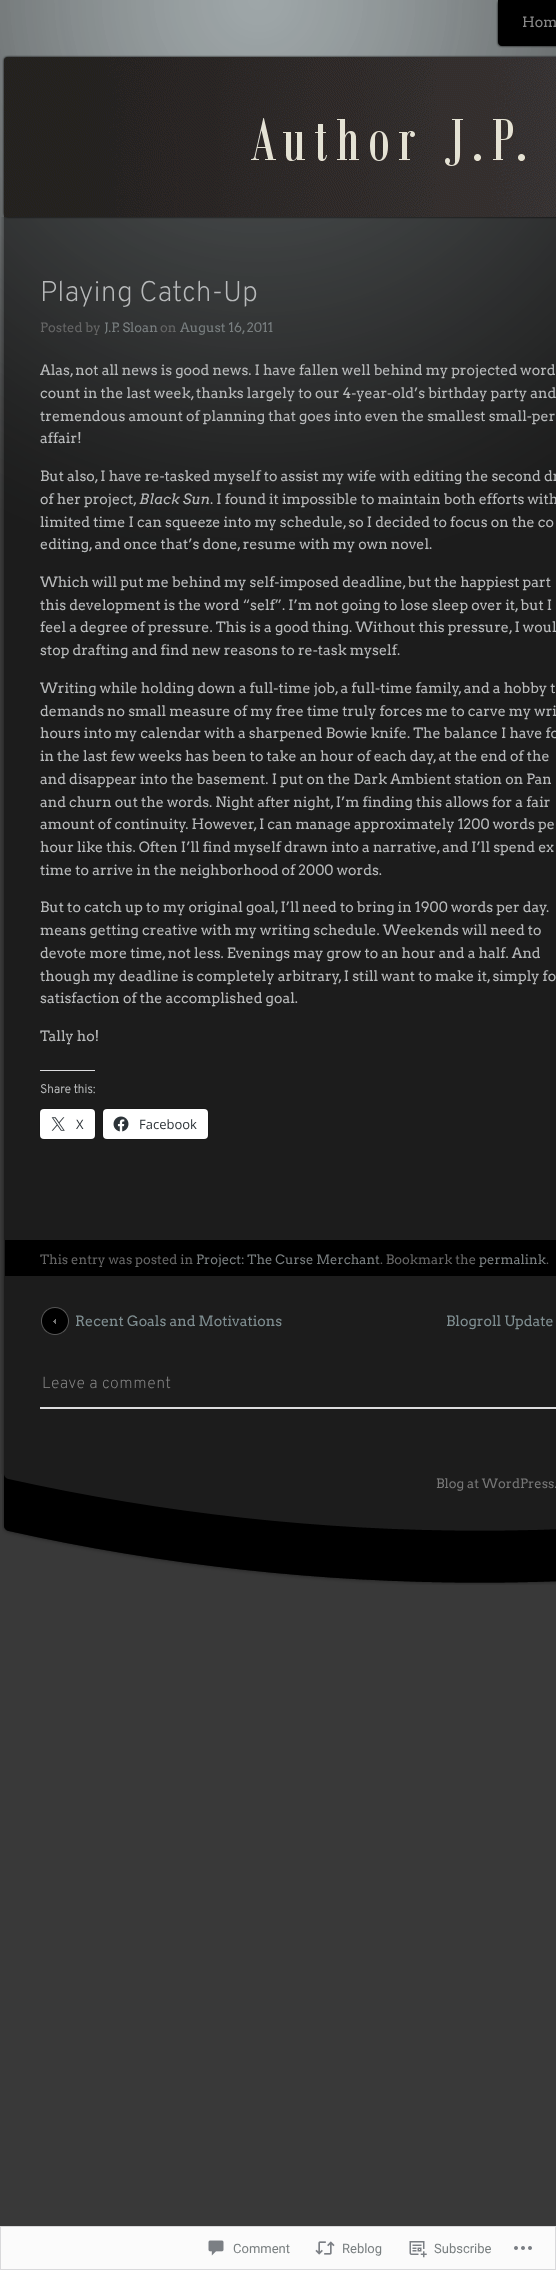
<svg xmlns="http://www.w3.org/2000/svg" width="556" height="2270">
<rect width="100%" height="100%" fill="#393939"/>
<image x="0" y="0" width="556" height="546" href="media/1.png"/>
<rect x="498" width="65" height="46" rx="4" fill="#000" filter="blur(1px)"/>
<path d="M498 0h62v42c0 2-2 4-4 4h-54c-2 0-4-2-4-4z" fill="#000"/>
<text x="522" y="27" style="font-family:Arvo;font-size:14.2px;fill:#888">Hom</text>
<image x="1" y="217" width="555" height="1257" href="media/3.png"/>
<rect x="4" y="57" width="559" height="160" rx="4" fill="#000" filter="blur(1px)"/>
<image x="4" y="57" width="552" height="160" href="media/2.png"/>
<text x="40" y="301" style="font-family:Overpass;font-size:28.5px;font-weight:200;fill:#b8babb">Playing Catch-Up</text>
<text x="40" y="332" style="font-family:Arvo;font-size:13px;fill:#666">Posted by</text>
<text x="104" y="332" style="font-family:Arvo;font-size:13px;fill:#797f80">J.P. Sloan</text>
<text x="160" y="332" style="font-family:Arvo;font-size:13px;fill:#666">on</text>
<text x="180" y="332" style="font-family:Arvo;font-size:13px;fill:#797f80">August 16, 2011</text>
<text x="40" y="375" style="font-family:Arvo;font-size:14.2px;fill:#b8babb">Alas, not all news is good news. I have fallen well behind my projected word</text>
<text x="40" y="398" style="font-family:Arvo;font-size:14.2px;fill:#b8babb">count in the last week, thanks largely to our 4-year-old’s birthday party and</text>
<text x="40" y="421" style="font-family:Arvo;font-size:14.2px;fill:#b8babb">tremendous amount of planning that goes into even the smallest small-per</text>
<text x="40" y="443" style="font-family:Arvo;font-size:14.2px;fill:#b8babb">affair!</text>
<text x="40" y="481" style="font-family:Arvo;font-size:14.2px;fill:#b8babb">But also, I have re-tasked myself to assist my wife with editing the second dr</text>
<text x="40" y="504" style="font-family:Arvo;font-size:14.2px;fill:#b8babb">of her project,</text>
<text x="139" y="504" style="font-family:Arvo;font-size:14.2px;font-style:italic;fill:#b8babb">Black Sun</text>
<text x="210" y="504" style="font-family:Arvo;font-size:14.2px;fill:#b8babb">. I found it impossible to maintain both efforts with</text>
<text x="40" y="527" style="font-family:Arvo;font-size:14.2px;fill:#b8babb">limited time I can squeeze into my schedule, so I decided to focus on the co</text>
<text x="40" y="549" style="font-family:Arvo;font-size:14.2px;fill:#b8babb">editing, and once that’s done, resume with my own novel.</text>
<text x="40" y="587" style="font-family:Arvo;font-size:14.2px;fill:#b8babb">Which will put me behind my self-imposed deadline, but the happiest part</text>
<text x="40" y="610" style="font-family:Arvo;font-size:14.2px;fill:#b8babb">this development is the word “self”. I’m not going to lose sleep over it, but I</text>
<text x="40" y="632" style="font-family:Arvo;font-size:14.2px;fill:#b8babb">feel a degree of pressure. This is a good thing. Without this pressure, I woul</text>
<text x="40" y="655" style="font-family:Arvo;font-size:14.2px;fill:#b8babb">stop drafting and find new reasons to re-task myself.</text>
<text x="40" y="693" style="font-family:Arvo;font-size:14.2px;fill:#b8babb">Writing while holding down a full-time job, a full-time family, and a hobby t</text>
<text x="40" y="716" style="font-family:Arvo;font-size:14.2px;fill:#b8babb">demands no small measure of my free time truly forces me to carve my wri</text>
<text x="40" y="738" style="font-family:Arvo;font-size:14.2px;fill:#b8babb">hours into my calendar with a sharpened Bowie knife. The balance I have fo</text>
<text x="40" y="761" style="font-family:Arvo;font-size:14.2px;fill:#b8babb">in the last few weeks has been to take an hour of each day, at the end of the</text>
<text x="40" y="784" style="font-family:Arvo;font-size:14.2px;fill:#b8babb">and disappear into the basement. I put on the Dark Ambient station on Pan</text>
<text x="40" y="807" style="font-family:Arvo;font-size:14.2px;fill:#b8babb">and churn out the words. Night after night, I’m finding this allows for a fair</text>
<text x="40" y="829" style="font-family:Arvo;font-size:14.2px;fill:#b8babb">amount of continuity. However, I can manage approximately 1200 words pe</text>
<text x="40" y="852" style="font-family:Arvo;font-size:14.2px;fill:#b8babb">hour like this. Often I’ll find myself drawn into a narrative, and I’ll spend ex</text>
<text x="40" y="875" style="font-family:Arvo;font-size:14.2px;fill:#b8babb">time to arrive in the neighborhood of 2000 words.</text>
<text x="40" y="912" style="font-family:Arvo;font-size:14.2px;fill:#b8babb">But to catch up to my original goal, I’ll need to bring in 1900 words per day.</text>
<text x="40" y="935" style="font-family:Arvo;font-size:14.2px;fill:#b8babb">means getting creative with my writing schedule. Weekends will need to</text>
<text x="40" y="958" style="font-family:Arvo;font-size:14.2px;fill:#b8babb">devote more time, not less. Evenings may grow to an hour and a half. And</text>
<text x="40" y="981" style="font-family:Arvo;font-size:14.2px;fill:#b8babb">though my deadline is completely arbitrary, I still want to make it, simply fo</text>
<text x="40" y="1003" style="font-family:Arvo;font-size:14.2px;fill:#b8babb">satisfaction of the accomplished goal.</text>
<text x="40" y="1041" style="font-family:Arvo;font-size:14.2px;fill:#b8babb">Tally ho!</text>
<rect x="40" y="1070" width="55" height="1" fill="#dcdcde"/>
<text x="40" y="1093" style="font-family:Overpass;font-size:12px;font-weight:bold;fill:#b8babb">Share this:</text>
<rect x="39.5" y="1108.5" width="56" height="31" rx="4.5" fill="none" stroke="#191919"/>
<rect x="40" y="1109" width="55" height="30" rx="4" fill="#fff"/>
<image x="51" y="1117" width="14" height="14" href="media/4.png"/>
<text x="76" y="1129" style="font-family:Open Sans;font-size:13px;fill:#2c3338">X</text>
<rect x="102.5" y="1108.5" width="106" height="31" rx="4.5" fill="none" stroke="#191919"/>
<rect x="103" y="1109" width="105" height="30" rx="4" fill="#fff"/>
<image x="113" y="1116" width="16" height="16" href="media/5.png"/>
<text x="139" y="1129" style="font-family:Open Sans;font-size:13px;fill:#2c3338">Facebook</text>
<rect x="5" y="1240" width="551" height="36" fill="#000"/>
<text x="40" y="1264" style="font-family:Arvo;font-size:13px;fill:#666">This entry was posted in</text>
<text x="196" y="1264" style="font-family:Arvo;font-size:13px;fill:#797f80">Project: The Curse Merchant</text>
<text x="380" y="1264" style="font-family:Arvo;font-size:13px;fill:#666">. Bookmark the</text>
<text x="479" y="1264" style="font-family:Arvo;font-size:13px;fill:#797f80">permalink</text>
<text x="546" y="1264" style="font-family:Arvo;font-size:13px;fill:#666">.</text>
<image x="41" y="1307" width="28" height="28" href="media/6.png"/>
<text x="75" y="1326" style="font-family:Arvo;font-size:14.2px;fill:#7f8e91">Recent Goals and Motivations</text>
<text x="446" y="1326" style="font-family:Arvo;font-size:14.2px;fill:#7f8e91">Blogroll Update</text>
<text x="42" y="1388" style="font-family:Overpass;font-size:16px;font-weight:200;letter-spacing:0.4px;fill:#888">Leave a comment</text>
<rect x="40" y="1407" width="516" height="2" fill="#dcdcde"/>
<image x="2" y="1474" width="554" height="111" href="media/7.png"/>
<text x="436" y="1488" style="font-family:Arvo;font-size:13px;fill:#777">Blog at WordPress.</text>
<rect x="0.5" y="2226.5" width="555" height="43" fill="#fbfbfb" stroke="#d9d9db"/>
<image x="208" y="2240" width="16" height="16" href="media/8.png"/>
<text x="233" y="2253" style="font-family:Roboto;font-size:13px;fill:#797f80">Comment</text>
<image x="315" y="2241" width="20" height="14" href="media/9.png"/>
<text x="342" y="2253" style="font-family:Roboto;font-size:13px;fill:#797f80">Reblog</text>
<image x="409" y="2241" width="18" height="17" href="media/10.png"/>
<text x="434" y="2253" style="font-family:Roboto;font-size:13px;fill:#797f80">Subscribe</text>
<image x="514" y="2246" width="18" height="4" href="media/11.png"/>
</svg>
